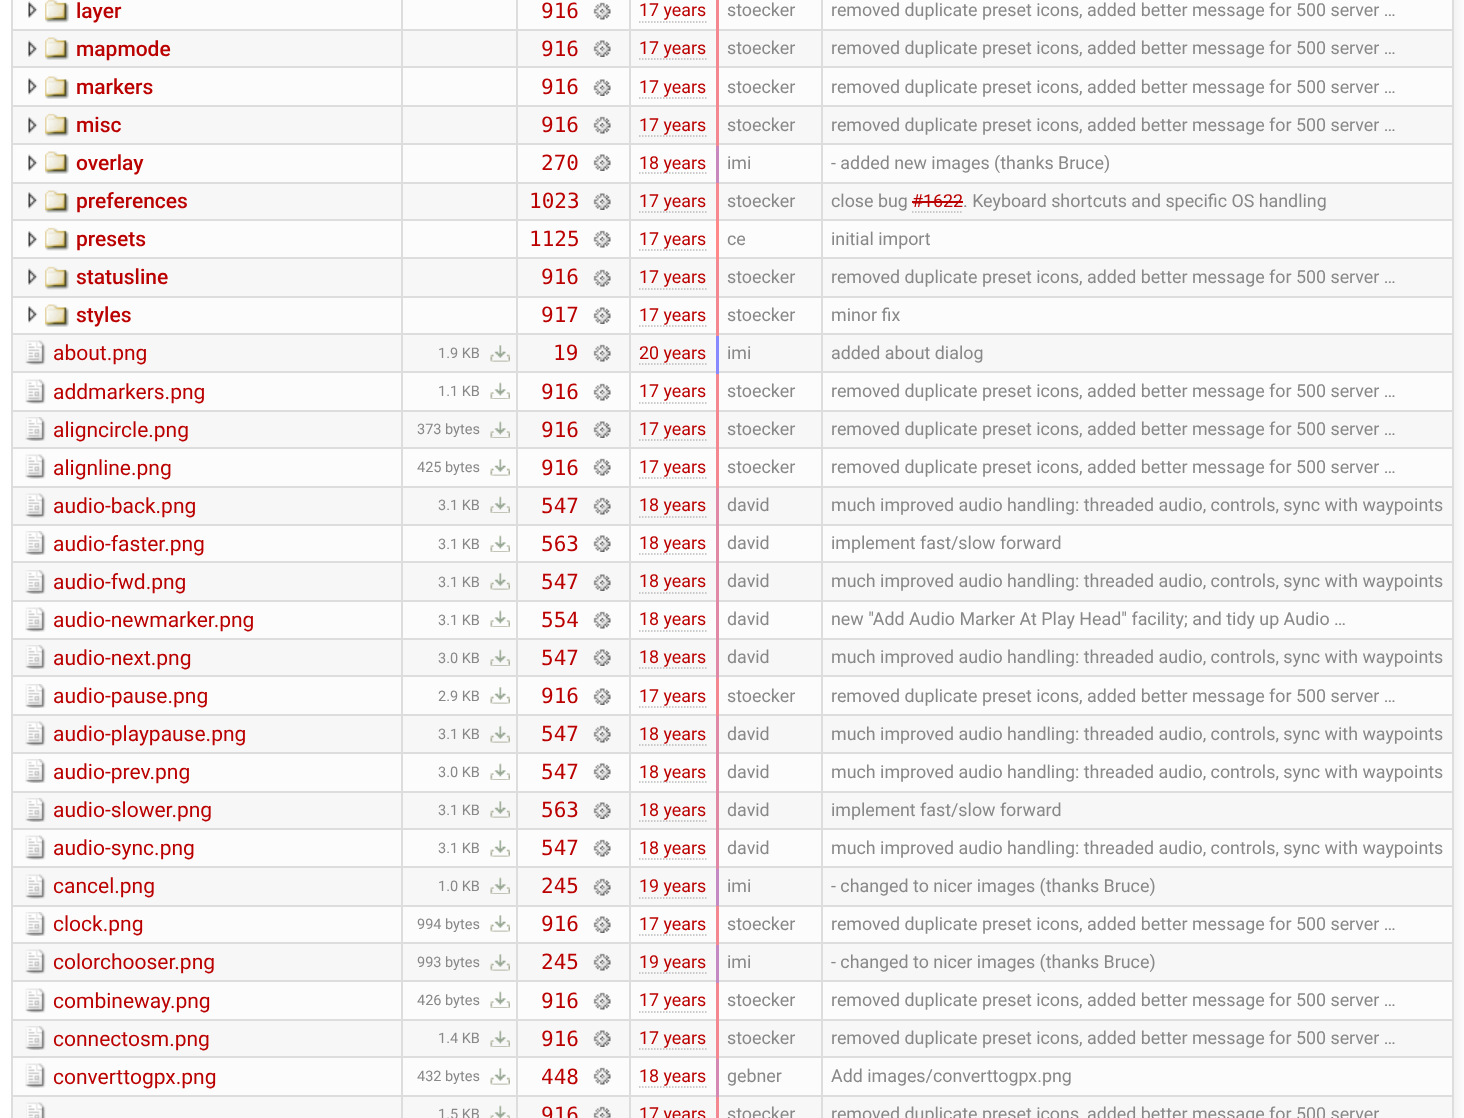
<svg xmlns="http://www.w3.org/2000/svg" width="1464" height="1118">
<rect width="100%" height="100%" fill="#fff"/>
<rect x="17" y="-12" width="1443" height="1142" fill="#f2f2f2" filter="blur(4px)"/>
<rect x="16" width="1436" height="29" fill="#fcfcfc"/>
<image x="28" y="1" width="10" height="17" href="media/1.png"/>
<image x="45" y="0" width="24" height="23" href="media/2.png"/>
<text x="76" y="18" style="font-family:Roboto;font-size:21px;font-weight:500;fill:#b00">layer</text>
<text x="541" y="18" style="font-family:DejaVu Sans Mono;font-size:21px;fill:#b00">916</text>
<image x="593" y="2" width="18" height="18" href="media/3.png"/>
<text x="639" y="16" style="font-family:Roboto;font-size:17.85px;fill:#b00">17 years</text>
<path d="M639 22h67.5" fill="none" stroke="#bbb" stroke-width="1.5" stroke-dasharray="1.5 1.5"/>
<text x="727" y="16" style="font-family:Roboto;font-size:17.85px;fill:#888">stoecker</text>
<text x="831" y="16" style="font-family:Roboto;font-size:17.85px;fill:#888">removed duplicate preset icons, added better message for 500 server …</text>
<rect x="13" y="31" width="1439" height="35" fill="#f7f7f7"/>
<rect x="11" y="29" width="1443" height="2" fill="#ddd"/>
<image x="28" y="40" width="10" height="17" href="media/4.png"/>
<image x="45" y="37" width="24" height="23" href="media/5.png"/>
<text x="76" y="56" style="font-family:Roboto;font-size:21px;font-weight:500;fill:#b00">mapmode</text>
<text x="541" y="56" style="font-family:DejaVu Sans Mono;font-size:21px;fill:#b00">916</text>
<image x="593" y="40" width="18" height="17" href="media/6.png"/>
<text x="639" y="54" style="font-family:Roboto;font-size:17.85px;fill:#b00">17 years</text>
<path d="M639 59h67.5" fill="none" stroke="#bbb" stroke-width="1.5" stroke-dasharray="1.5 1.5"/>
<text x="727" y="54" style="font-family:Roboto;font-size:17.85px;fill:#888">stoecker</text>
<text x="831" y="54" style="font-family:Roboto;font-size:17.85px;fill:#888">removed duplicate preset icons, added better message for 500 server …</text>
<rect x="16" y="68" width="1436" height="37" fill="#fcfcfc"/>
<rect x="11" y="66" width="1443" height="2" fill="#ddd"/>
<image x="28" y="78" width="10" height="17" href="media/7.png"/>
<image x="45" y="76" width="24" height="23" href="media/8.png"/>
<text x="76" y="94" style="font-family:Roboto;font-size:21px;font-weight:500;fill:#b00">markers</text>
<text x="541" y="94" style="font-family:DejaVu Sans Mono;font-size:21px;fill:#b00">916</text>
<image x="593" y="79" width="18" height="17" href="media/9.png"/>
<text x="639" y="93" style="font-family:Roboto;font-size:17.85px;fill:#b00">17 years</text>
<path d="M639 98h67.5" fill="none" stroke="#bbb" stroke-width="1.5" stroke-dasharray="1.5 1.5"/>
<text x="727" y="93" style="font-family:Roboto;font-size:17.85px;fill:#888">stoecker</text>
<text x="831" y="93" style="font-family:Roboto;font-size:17.85px;fill:#888">removed duplicate preset icons, added better message for 500 server …</text>
<rect x="13" y="107" width="1439" height="36" fill="#f7f7f7"/>
<rect x="11" y="105" width="1443" height="2" fill="#ddd"/>
<image x="28" y="117" width="10" height="17" href="media/10.png"/>
<image x="45" y="113" width="24" height="24" href="media/11.png"/>
<text x="76" y="132" style="font-family:Roboto;font-size:21px;font-weight:500;fill:#b00">misc</text>
<text x="541" y="132" style="font-family:DejaVu Sans Mono;font-size:21px;fill:#b00">916</text>
<image x="593" y="116" width="18" height="18" href="media/12.png"/>
<rect x="16" y="145" width="1436" height="37" fill="#fcfcfc"/>
<rect x="11" y="143" width="1443" height="2" fill="#ddd"/>
<rect x="11" y="182" width="1443" height="2" fill="#ddd"/>
<rect x="13" y="184" width="1439" height="35" fill="#f7f7f7"/>
<rect x="11" y="219" width="1443" height="2" fill="#ddd"/>
<rect x="16" y="221" width="1436" height="36" fill="#fcfcfc"/>
<rect x="13" y="259" width="1439" height="37" fill="#f7f7f7"/>
<rect x="11" y="257" width="1443" height="2" fill="#ddd"/>
<rect x="16" y="298" width="1436" height="35" fill="#fcfcfc"/>
<rect x="11" y="296" width="1443" height="2" fill="#ddd"/>
<rect x="13" y="335" width="1439" height="36" fill="#f7f7f7"/>
<rect x="11" y="333" width="1443" height="2" fill="#ddd"/>
<rect x="16" y="373" width="1436" height="37" fill="#fcfcfc"/>
<rect x="11" y="371" width="1443" height="2" fill="#ddd"/>
<rect x="13" y="412" width="1439" height="35" fill="#f7f7f7"/>
<rect x="11" y="410" width="1443" height="2" fill="#ddd"/>
<rect x="16" y="449" width="1436" height="37" fill="#fcfcfc"/>
<rect x="11" y="447" width="1443" height="2" fill="#ddd"/>
<rect x="11" y="486" width="1443" height="2" fill="#ddd"/>
<rect x="13" y="488" width="1439" height="36" fill="#f7f7f7"/>
<rect x="11" y="524" width="1443" height="2" fill="#ddd"/>
<rect x="16" y="526" width="1436" height="35" fill="#fcfcfc"/>
<rect x="13" y="563" width="1439" height="37" fill="#f7f7f7"/>
<rect x="11" y="561" width="1443" height="2" fill="#ddd"/>
<rect x="16" y="602" width="1436" height="36" fill="#fcfcfc"/>
<rect x="11" y="600" width="1443" height="2" fill="#ddd"/>
<rect x="13" y="640" width="1439" height="35" fill="#f7f7f7"/>
<rect x="11" y="638" width="1443" height="2" fill="#ddd"/>
<rect x="16" y="677" width="1436" height="37" fill="#fcfcfc"/>
<rect x="11" y="675" width="1443" height="2" fill="#ddd"/>
<rect x="11" y="714" width="1443" height="2" fill="#ddd"/>
<rect x="13" y="716" width="1439" height="36" fill="#f7f7f7"/>
<rect x="16" y="754" width="1436" height="37" fill="#fcfcfc"/>
<rect x="11" y="752" width="1443" height="2" fill="#ddd"/>
<rect x="11" y="791" width="1443" height="2" fill="#ddd"/>
<rect x="13" y="793" width="1439" height="35" fill="#f7f7f7"/>
<rect x="11" y="828" width="1443" height="2" fill="#ddd"/>
<rect x="16" y="830" width="1436" height="36" fill="#fcfcfc"/>
<rect x="13" y="868" width="1439" height="37" fill="#f7f7f7"/>
<rect x="11" y="866" width="1443" height="2" fill="#ddd"/>
<rect x="11" y="905" width="1443" height="2" fill="#ddd"/>
<rect x="16" y="907" width="1436" height="35" fill="#fcfcfc"/>
<rect x="13" y="944" width="1439" height="36" fill="#f7f7f7"/>
<rect x="11" y="942" width="1443" height="2" fill="#ddd"/>
<rect x="16" y="982" width="1436" height="37" fill="#fcfcfc"/>
<rect x="11" y="980" width="1443" height="2" fill="#ddd"/>
<rect x="13" y="1021" width="1439" height="35" fill="#f7f7f7"/>
<rect x="11" y="1019" width="1443" height="2" fill="#ddd"/>
<rect x="16" y="1058" width="1436" height="37" fill="#fcfcfc"/>
<rect x="11" y="1056" width="1443" height="2" fill="#ddd"/>
<rect x="11" y="1095" width="1443" height="2" fill="#ddd"/>
<rect x="13" y="1097" width="1439" height="21" fill="#f7f7f7"/>
<rect x="716" y="1094" width="3" height="24" fill="#f48892"/>
<rect x="716" y="1056" width="3" height="41" fill="#d588b1"/>
<rect x="716" y="980" width="3" height="79" fill="#f48892"/>
<rect x="716" y="942" width="3" height="41" fill="#c488c2"/>
<rect x="716" y="903" width="3" height="42" fill="#f48892"/>
<rect x="716" y="866" width="3" height="40" fill="#c488c2"/>
<rect x="716" y="827" width="3" height="42" fill="#e088a6"/>
<rect x="716" y="789" width="3" height="41" fill="#e188a5"/>
<rect x="716" y="713" width="3" height="79" fill="#e088a6"/>
<rect x="716" y="675" width="3" height="41" fill="#f48892"/>
<rect x="716" y="561" width="3" height="117" fill="#e088a6"/>
<rect x="716" y="522" width="3" height="42" fill="#e188a5"/>
<rect x="716" y="485" width="3" height="40" fill="#e088a6"/>
<rect x="716" y="371" width="3" height="117" fill="#f48892"/>
<rect x="716" y="333" width="3" height="41" fill="#88f"/>
<rect x="716" y="257" width="3" height="79" fill="#f48892"/>
<rect x="716" y="218" width="3" height="42" fill="#f88"/>
<rect x="716" y="180" width="3" height="41" fill="#f7888f"/>
<rect x="716" y="143" width="3" height="40" fill="#c888be"/>
<rect x="716" width="3" height="146" fill="#f48892"/>
<text x="639" y="131" style="font-family:Roboto;font-size:17.85px;fill:#b00">17 years</text>
<path d="M639 136h67.5" fill="none" stroke="#bbb" stroke-width="1.5" stroke-dasharray="1.5 1.5"/>
<text x="727" y="131" style="font-family:Roboto;font-size:17.85px;fill:#888">stoecker</text>
<text x="831" y="131" style="font-family:Roboto;font-size:17.85px;fill:#888">removed duplicate preset icons, added better message for 500 server …</text>
<image x="28" y="154" width="10" height="17" href="media/1.png"/>
<image x="45" y="151" width="24" height="23" href="media/8.png"/>
<text x="76" y="170" style="font-family:Roboto;font-size:21px;font-weight:500;fill:#b00">overlay</text>
<text x="541" y="170" style="font-family:DejaVu Sans Mono;font-size:21px;fill:#b00">270</text>
<image x="593" y="154" width="18" height="17" href="media/9.png"/>
<path d="M639 173h67.5" fill="none" stroke="#bbb" stroke-width="1.5" stroke-dasharray="1.5 1.5"/>
<text x="639" y="169" style="font-family:Roboto;font-size:17.85px;fill:#b00">18 years</text>
<text x="727" y="169" style="font-family:Roboto;font-size:17.85px;fill:#888">imi</text>
<text x="831" y="169" style="font-family:Roboto;font-size:17.85px;fill:#888">- added new images (thanks Bruce)</text>
<image x="28" y="192" width="10" height="17" href="media/10.png"/>
<image x="45" y="190" width="24" height="23" href="media/5.png"/>
<text x="76" y="208" style="font-family:Roboto;font-size:21px;font-weight:500;fill:#b00">preferences</text>
<text x="529" y="208" style="font-family:DejaVu Sans Mono;font-size:21px;fill:#b00">1023</text>
<image x="593" y="193" width="18" height="17" href="media/6.png"/>
<text x="639" y="207" style="font-family:Roboto;font-size:17.85px;fill:#b00">17 years</text>
<path d="M639 212h67.5" fill="none" stroke="#bbb" stroke-width="1.5" stroke-dasharray="1.5 1.5"/>
<text x="727" y="207" style="font-family:Roboto;font-size:17.85px;fill:#888">stoecker</text>
<text x="831" y="207" style="font-family:Roboto;font-size:17.85px;fill:#888">close bug</text>
<text x="912" y="207" style="font-family:Roboto;font-size:17.85px;fill:#b00">#1622</text>
<path d="M912 212h51" fill="none" stroke="#bbb" stroke-width="1.5" stroke-dasharray="1.5 1.5"/>
<rect x="912" y="201" width="51" height="2" fill="#b00"/>
<text x="963" y="207" style="font-family:Roboto;font-size:17.85px;fill:#888">. Keyboard shortcuts and specific OS handling</text>
<image x="28" y="231" width="10" height="17" href="media/7.png"/>
<image x="45" y="227" width="24" height="24" href="media/13.png"/>
<text x="76" y="246" style="font-family:Roboto;font-size:21px;font-weight:500;fill:#b00">presets</text>
<text x="529" y="246" style="font-family:DejaVu Sans Mono;font-size:21px;fill:#b00">1125</text>
<image x="593" y="230" width="18" height="18" href="media/3.png"/>
<text x="639" y="245" style="font-family:Roboto;font-size:17.85px;fill:#b00">17 years</text>
<path d="M639 250h67.5" fill="none" stroke="#bbb" stroke-width="1.5" stroke-dasharray="1.5 1.5"/>
<text x="727" y="245" style="font-family:Roboto;font-size:17.85px;fill:#888">ce</text>
<text x="831" y="245" style="font-family:Roboto;font-size:17.85px;fill:#888">initial import</text>
<image x="28" y="268" width="10" height="17" href="media/4.png"/>
<image x="45" y="266" width="24" height="24" href="media/11.png"/>
<text x="76" y="284" style="font-family:Roboto;font-size:21px;font-weight:500;fill:#b00">statusline</text>
<text x="541" y="284" style="font-family:DejaVu Sans Mono;font-size:21px;fill:#b00">916</text>
<image x="593" y="269" width="18" height="18" href="media/12.png"/>
<text x="639" y="283" style="font-family:Roboto;font-size:17.85px;fill:#b00">17 years</text>
<path d="M639 289h67.5" fill="none" stroke="#bbb" stroke-width="1.5" stroke-dasharray="1.5 1.5"/>
<text x="727" y="283" style="font-family:Roboto;font-size:17.85px;fill:#888">stoecker</text>
<text x="831" y="283" style="font-family:Roboto;font-size:17.85px;fill:#888">removed duplicate preset icons, added better message for 500 server …</text>
<image x="28" y="306" width="10" height="17" href="media/7.png"/>
<image x="45" y="304" width="24" height="23" href="media/8.png"/>
<text x="76" y="322" style="font-family:Roboto;font-size:21px;font-weight:500;fill:#b00">styles</text>
<text x="541" y="322" style="font-family:DejaVu Sans Mono;font-size:21px;fill:#b00">917</text>
<image x="593" y="307" width="18" height="17" href="media/9.png"/>
<text x="639" y="321" style="font-family:Roboto;font-size:17.85px;fill:#b00">17 years</text>
<path d="M639 326h67.5" fill="none" stroke="#bbb" stroke-width="1.5" stroke-dasharray="1.5 1.5"/>
<text x="727" y="321" style="font-family:Roboto;font-size:17.85px;fill:#888">stoecker</text>
<text x="831" y="321" style="font-family:Roboto;font-size:17.85px;fill:#888">minor fix</text>
<image x="25" y="340" width="21" height="25" href="media/14.png"/>
<text x="53" y="360" style="font-family:Roboto;font-size:21px;fill:#b00">about.png</text>
<text x="438" y="358" style="font-family:Roboto;font-size:14.5px;fill:#888">1.9 KB</text>
<image x="490" y="345" width="20" height="17" href="media/15.png"/>
<text x="553" y="360" style="font-family:DejaVu Sans Mono;font-size:21px;fill:#b00">19</text>
<image x="593" y="344" width="18" height="18" href="media/12.png"/>
<text x="639" y="359" style="font-family:Roboto;font-size:17.85px;fill:#b00">20 years</text>
<path d="M639 364h67.5" fill="none" stroke="#bbb" stroke-width="1.5" stroke-dasharray="1.5 1.5"/>
<text x="727" y="359" style="font-family:Roboto;font-size:17.85px;fill:#888">imi</text>
<text x="831" y="359" style="font-family:Roboto;font-size:17.85px;fill:#888">added about dialog</text>
<image x="25" y="379" width="21" height="25" href="media/16.png"/>
<text x="53" y="399" style="font-family:Roboto;font-size:21px;fill:#b00">addmarkers.png</text>
<text x="438" y="396" style="font-family:Roboto;font-size:14.5px;fill:#888">1.1 KB</text>
<image x="490" y="382" width="20" height="17" href="media/17.png"/>
<text x="541" y="399" style="font-family:DejaVu Sans Mono;font-size:21px;fill:#b00">916</text>
<image x="593" y="383" width="18" height="18" href="media/3.png"/>
<text x="639" y="397" style="font-family:Roboto;font-size:17.85px;fill:#b00">17 years</text>
<path d="M639 403h67.5" fill="none" stroke="#bbb" stroke-width="1.5" stroke-dasharray="1.5 1.5"/>
<text x="727" y="397" style="font-family:Roboto;font-size:17.85px;fill:#888">stoecker</text>
<text x="831" y="397" style="font-family:Roboto;font-size:17.85px;fill:#888">removed duplicate preset icons, added better message for 500 server …</text>
<image x="25" y="417" width="21" height="24" href="media/18.png"/>
<text x="53" y="437" style="font-family:Roboto;font-size:21px;fill:#b00">aligncircle.png</text>
<text x="417" y="434" style="font-family:Roboto;font-size:14.5px;fill:#888">373 bytes</text>
<image x="490" y="421" width="20" height="17" href="media/19.png"/>
<text x="541" y="437" style="font-family:DejaVu Sans Mono;font-size:21px;fill:#b00">916</text>
<image x="593" y="421" width="18" height="17" href="media/6.png"/>
<text x="639" y="435" style="font-family:Roboto;font-size:17.85px;fill:#b00">17 years</text>
<path d="M639 440h67.5" fill="none" stroke="#bbb" stroke-width="1.5" stroke-dasharray="1.5 1.5"/>
<text x="727" y="435" style="font-family:Roboto;font-size:17.85px;fill:#888">stoecker</text>
<text x="831" y="435" style="font-family:Roboto;font-size:17.85px;fill:#888">removed duplicate preset icons, added better message for 500 server …</text>
<image x="25" y="454" width="21" height="25" href="media/16.png"/>
<text x="53" y="475" style="font-family:Roboto;font-size:21px;fill:#b00">alignline.png</text>
<text x="417" y="472" style="font-family:Roboto;font-size:14.5px;fill:#888">425 bytes</text>
<image x="490" y="459" width="20" height="17" href="media/20.png"/>
<text x="541" y="475" style="font-family:DejaVu Sans Mono;font-size:21px;fill:#b00">916</text>
<image x="593" y="458" width="18" height="18" href="media/3.png"/>
<text x="639" y="473" style="font-family:Roboto;font-size:17.85px;fill:#b00">17 years</text>
<path d="M639 478h67.5" fill="none" stroke="#bbb" stroke-width="1.5" stroke-dasharray="1.5 1.5"/>
<text x="727" y="473" style="font-family:Roboto;font-size:17.85px;fill:#888">stoecker</text>
<text x="831" y="473" style="font-family:Roboto;font-size:17.85px;fill:#888">removed duplicate preset icons, added better message for 500 server …</text>
<image x="25" y="493" width="21" height="25" href="media/14.png"/>
<text x="53" y="513" style="font-family:Roboto;font-size:21px;fill:#b00">audio-back.png</text>
<text x="438" y="510" style="font-family:Roboto;font-size:14.5px;fill:#888">3.1 KB</text>
<image x="490" y="496" width="20" height="17" href="media/19.png"/>
<text x="541" y="513" style="font-family:DejaVu Sans Mono;font-size:21px;fill:#b00">547</text>
<image x="593" y="497" width="18" height="18" href="media/12.png"/>
<text x="639" y="511" style="font-family:Roboto;font-size:17.85px;fill:#b00">18 years</text>
<path d="M639 517h67.5" fill="none" stroke="#bbb" stroke-width="1.5" stroke-dasharray="1.5 1.5"/>
<text x="727" y="511" style="font-family:Roboto;font-size:17.85px;fill:#888">david</text>
<text x="831" y="511" style="font-family:Roboto;font-size:17.85px;fill:#888">much improved audio handling: threaded audio, controls, sync with waypoints</text>
<image x="25" y="531" width="21" height="24" href="media/21.png"/>
<text x="53" y="551" style="font-family:Roboto;font-size:21px;fill:#b00">audio-faster.png</text>
<text x="438" y="549" style="font-family:Roboto;font-size:14.5px;fill:#888">3.1 KB</text>
<image x="490" y="535" width="20" height="17" href="media/17.png"/>
<text x="541" y="551" style="font-family:DejaVu Sans Mono;font-size:21px;fill:#b00">563</text>
<image x="593" y="535" width="18" height="17" href="media/9.png"/>
<text x="639" y="549" style="font-family:Roboto;font-size:17.85px;fill:#b00">18 years</text>
<path d="M639 554h67.5" fill="none" stroke="#bbb" stroke-width="1.5" stroke-dasharray="1.5 1.5"/>
<text x="727" y="549" style="font-family:Roboto;font-size:17.85px;fill:#888">david</text>
<text x="831" y="549" style="font-family:Roboto;font-size:17.85px;fill:#888">implement fast/slow forward</text>
<image x="25" y="570" width="21" height="24" href="media/18.png"/>
<text x="53" y="589" style="font-family:Roboto;font-size:21px;fill:#b00">audio-fwd.png</text>
<text x="438" y="587" style="font-family:Roboto;font-size:14.5px;fill:#888">3.1 KB</text>
<image x="490" y="573" width="20" height="17" href="media/15.png"/>
<text x="541" y="589" style="font-family:DejaVu Sans Mono;font-size:21px;fill:#b00">547</text>
<image x="593" y="574" width="18" height="17" href="media/6.png"/>
<text x="639" y="587" style="font-family:Roboto;font-size:17.85px;fill:#b00">18 years</text>
<path d="M639 593h67.5" fill="none" stroke="#bbb" stroke-width="1.5" stroke-dasharray="1.5 1.5"/>
<text x="727" y="587" style="font-family:Roboto;font-size:17.85px;fill:#888">david</text>
<text x="831" y="587" style="font-family:Roboto;font-size:17.85px;fill:#888">much improved audio handling: threaded audio, controls, sync with waypoints</text>
<image x="25" y="607" width="21" height="25" href="media/16.png"/>
<text x="53" y="627" style="font-family:Roboto;font-size:21px;fill:#b00">audio-newmarker.png</text>
<text x="438" y="625" style="font-family:Roboto;font-size:14.5px;fill:#888">3.1 KB</text>
<image x="490" y="610" width="20" height="17" href="media/17.png"/>
<text x="541" y="627" style="font-family:DejaVu Sans Mono;font-size:21px;fill:#b00">554</text>
<image x="593" y="611" width="18" height="18" href="media/3.png"/>
<text x="639" y="625" style="font-family:Roboto;font-size:17.85px;fill:#b00">18 years</text>
<path d="M639 631h67.5" fill="none" stroke="#bbb" stroke-width="1.5" stroke-dasharray="1.5 1.5"/>
<text x="727" y="625" style="font-family:Roboto;font-size:17.85px;fill:#888">david</text>
<text x="831" y="625" style="font-family:Roboto;font-size:17.85px;fill:#888">new "Add Audio Marker At Play Head" facility; and tidy up Audio …</text>
<image x="25" y="645" width="21" height="24" href="media/18.png"/>
<text x="53" y="665" style="font-family:Roboto;font-size:21px;fill:#b00">audio-next.png</text>
<text x="438" y="663" style="font-family:Roboto;font-size:14.5px;fill:#888">3.0 KB</text>
<image x="490" y="649" width="20" height="17" href="media/19.png"/>
<text x="541" y="665" style="font-family:DejaVu Sans Mono;font-size:21px;fill:#b00">547</text>
<image x="593" y="649" width="18" height="17" href="media/6.png"/>
<text x="639" y="663" style="font-family:Roboto;font-size:17.85px;fill:#b00">18 years</text>
<path d="M639 668h67.5" fill="none" stroke="#bbb" stroke-width="1.5" stroke-dasharray="1.5 1.5"/>
<text x="727" y="663" style="font-family:Roboto;font-size:17.85px;fill:#888">david</text>
<text x="831" y="663" style="font-family:Roboto;font-size:17.85px;fill:#888">much improved audio handling: threaded audio, controls, sync with waypoints</text>
<image x="25" y="684" width="21" height="24" href="media/21.png"/>
<text x="53" y="703" style="font-family:Roboto;font-size:21px;fill:#b00">audio-pause.png</text>
<text x="438" y="701" style="font-family:Roboto;font-size:14.5px;fill:#888">2.9 KB</text>
<image x="490" y="687" width="20" height="17" href="media/20.png"/>
<text x="541" y="703" style="font-family:DejaVu Sans Mono;font-size:21px;fill:#b00">916</text>
<image x="593" y="688" width="18" height="17" href="media/9.png"/>
<text x="639" y="702" style="font-family:Roboto;font-size:17.85px;fill:#b00">17 years</text>
<path d="M639 707h67.5" fill="none" stroke="#bbb" stroke-width="1.5" stroke-dasharray="1.5 1.5"/>
<text x="727" y="702" style="font-family:Roboto;font-size:17.85px;fill:#888">stoecker</text>
<text x="831" y="702" style="font-family:Roboto;font-size:17.85px;fill:#888">removed duplicate preset icons, added better message for 500 server …</text>
<image x="25" y="721" width="21" height="25" href="media/14.png"/>
<text x="53" y="741" style="font-family:Roboto;font-size:21px;fill:#b00">audio-playpause.png</text>
<text x="438" y="739" style="font-family:Roboto;font-size:14.5px;fill:#888">3.1 KB</text>
<image x="490" y="726" width="20" height="17" href="media/15.png"/>
<text x="541" y="741" style="font-family:DejaVu Sans Mono;font-size:21px;fill:#b00">547</text>
<image x="593" y="725" width="18" height="18" href="media/12.png"/>
<text x="639" y="740" style="font-family:Roboto;font-size:17.85px;fill:#b00">18 years</text>
<path d="M639 745h67.5" fill="none" stroke="#bbb" stroke-width="1.5" stroke-dasharray="1.5 1.5"/>
<text x="727" y="740" style="font-family:Roboto;font-size:17.85px;fill:#888">david</text>
<text x="831" y="740" style="font-family:Roboto;font-size:17.85px;fill:#888">much improved audio handling: threaded audio, controls, sync with waypoints</text>
<image x="25" y="759" width="21" height="24" href="media/21.png"/>
<text x="53" y="779" style="font-family:Roboto;font-size:21px;fill:#b00">audio-prev.png</text>
<text x="438" y="777" style="font-family:Roboto;font-size:14.5px;fill:#888">3.0 KB</text>
<image x="490" y="763" width="20" height="17" href="media/17.png"/>
<text x="541" y="779" style="font-family:DejaVu Sans Mono;font-size:21px;fill:#b00">547</text>
<image x="593" y="763" width="18" height="17" href="media/9.png"/>
<path d="M639 782h67.5" fill="none" stroke="#bbb" stroke-width="1.5" stroke-dasharray="1.5 1.5"/>
<text x="639" y="778" style="font-family:Roboto;font-size:17.85px;fill:#b00">18 years</text>
<text x="727" y="778" style="font-family:Roboto;font-size:17.85px;fill:#888">david</text>
<text x="831" y="778" style="font-family:Roboto;font-size:17.85px;fill:#888">much improved audio handling: threaded audio, controls, sync with waypoints</text>
<image x="25" y="798" width="21" height="24" href="media/18.png"/>
<text x="53" y="817" style="font-family:Roboto;font-size:21px;fill:#b00">audio-slower.png</text>
<text x="438" y="815" style="font-family:Roboto;font-size:14.5px;fill:#888">3.1 KB</text>
<image x="490" y="801" width="20" height="17" href="media/15.png"/>
<text x="541" y="817" style="font-family:DejaVu Sans Mono;font-size:21px;fill:#b00">563</text>
<image x="593" y="802" width="18" height="17" href="media/6.png"/>
<text x="639" y="816" style="font-family:Roboto;font-size:17.85px;fill:#b00">18 years</text>
<path d="M639 821h67.5" fill="none" stroke="#bbb" stroke-width="1.5" stroke-dasharray="1.5 1.5"/>
<text x="727" y="816" style="font-family:Roboto;font-size:17.85px;fill:#888">david</text>
<text x="831" y="816" style="font-family:Roboto;font-size:17.85px;fill:#888">implement fast/slow forward</text>
<image x="25" y="835" width="21" height="25" href="media/16.png"/>
<text x="53" y="855" style="font-family:Roboto;font-size:21px;fill:#b00">audio-sync.png</text>
<text x="438" y="853" style="font-family:Roboto;font-size:14.5px;fill:#888">3.1 KB</text>
<image x="490" y="840" width="20" height="17" href="media/20.png"/>
<text x="541" y="855" style="font-family:DejaVu Sans Mono;font-size:21px;fill:#b00">547</text>
<image x="593" y="839" width="18" height="18" href="media/3.png"/>
<text x="639" y="854" style="font-family:Roboto;font-size:17.85px;fill:#b00">18 years</text>
<path d="M639 859h67.5" fill="none" stroke="#bbb" stroke-width="1.5" stroke-dasharray="1.5 1.5"/>
<text x="727" y="854" style="font-family:Roboto;font-size:17.85px;fill:#888">david</text>
<text x="831" y="854" style="font-family:Roboto;font-size:17.85px;fill:#888">much improved audio handling: threaded audio, controls, sync with waypoints</text>
<image x="25" y="874" width="21" height="25" href="media/14.png"/>
<text x="53" y="893" style="font-family:Roboto;font-size:21px;fill:#b00">cancel.png</text>
<text x="438" y="891" style="font-family:Roboto;font-size:14.5px;fill:#888">1.0 KB</text>
<image x="490" y="877" width="20" height="17" href="media/19.png"/>
<text x="541" y="893" style="font-family:DejaVu Sans Mono;font-size:21px;fill:#b00">245</text>
<image x="593" y="878" width="18" height="18" href="media/12.png"/>
<text x="639" y="892" style="font-family:Roboto;font-size:17.85px;fill:#b00">19 years</text>
<path d="M639 898h67.5" fill="none" stroke="#bbb" stroke-width="1.5" stroke-dasharray="1.5 1.5"/>
<text x="727" y="892" style="font-family:Roboto;font-size:17.85px;fill:#888">imi</text>
<text x="831" y="892" style="font-family:Roboto;font-size:17.85px;fill:#888">- changed to nicer images (thanks Bruce)</text>
<image x="25" y="912" width="21" height="24" href="media/21.png"/>
<text x="53" y="931" style="font-family:Roboto;font-size:21px;fill:#b00">clock.png</text>
<text x="417" y="929" style="font-family:Roboto;font-size:14.5px;fill:#888">994 bytes</text>
<image x="490" y="915" width="20" height="17" href="media/20.png"/>
<text x="541" y="931" style="font-family:DejaVu Sans Mono;font-size:21px;fill:#b00">916</text>
<image x="593" y="916" width="18" height="17" href="media/9.png"/>
<text x="639" y="930" style="font-family:Roboto;font-size:17.85px;fill:#b00">17 years</text>
<path d="M639 935h67.5" fill="none" stroke="#bbb" stroke-width="1.5" stroke-dasharray="1.5 1.5"/>
<text x="727" y="930" style="font-family:Roboto;font-size:17.85px;fill:#888">stoecker</text>
<text x="831" y="930" style="font-family:Roboto;font-size:17.85px;fill:#888">removed duplicate preset icons, added better message for 500 server …</text>
<image x="25" y="949" width="21" height="25" href="media/14.png"/>
<text x="53" y="969" style="font-family:Roboto;font-size:21px;fill:#b00">colorchooser.png</text>
<text x="417" y="967" style="font-family:Roboto;font-size:14.5px;fill:#888">993 bytes</text>
<image x="490" y="954" width="20" height="17" href="media/15.png"/>
<text x="541" y="969" style="font-family:DejaVu Sans Mono;font-size:21px;fill:#b00">245</text>
<image x="593" y="953" width="18" height="18" href="media/12.png"/>
<text x="639" y="968" style="font-family:Roboto;font-size:17.85px;fill:#b00">19 years</text>
<path d="M639 973h67.5" fill="none" stroke="#bbb" stroke-width="1.5" stroke-dasharray="1.5 1.5"/>
<text x="727" y="968" style="font-family:Roboto;font-size:17.85px;fill:#888">imi</text>
<text x="831" y="968" style="font-family:Roboto;font-size:17.85px;fill:#888">- changed to nicer images (thanks Bruce)</text>
<image x="25" y="988" width="21" height="25" href="media/16.png"/>
<text x="53" y="1008" style="font-family:Roboto;font-size:21px;fill:#b00">combineway.png</text>
<text x="417" y="1005" style="font-family:Roboto;font-size:14.5px;fill:#888">426 bytes</text>
<image x="490" y="991" width="20" height="17" href="media/17.png"/>
<text x="541" y="1008" style="font-family:DejaVu Sans Mono;font-size:21px;fill:#b00">916</text>
<image x="593" y="992" width="18" height="18" href="media/3.png"/>
<text x="639" y="1006" style="font-family:Roboto;font-size:17.85px;fill:#b00">17 years</text>
<path d="M639 1012h67.5" fill="none" stroke="#bbb" stroke-width="1.5" stroke-dasharray="1.5 1.5"/>
<text x="727" y="1006" style="font-family:Roboto;font-size:17.85px;fill:#888">stoecker</text>
<text x="831" y="1006" style="font-family:Roboto;font-size:17.85px;fill:#888">removed duplicate preset icons, added better message for 500 server …</text>
<image x="25" y="1026" width="21" height="24" href="media/18.png"/>
<text x="53" y="1046" style="font-family:Roboto;font-size:21px;fill:#b00">connectosm.png</text>
<text x="438" y="1043" style="font-family:Roboto;font-size:14.5px;fill:#888">1.4 KB</text>
<image x="490" y="1030" width="20" height="17" href="media/19.png"/>
<text x="541" y="1046" style="font-family:DejaVu Sans Mono;font-size:21px;fill:#b00">916</text>
<image x="593" y="1030" width="18" height="17" href="media/6.png"/>
<text x="639" y="1044" style="font-family:Roboto;font-size:17.85px;fill:#b00">17 years</text>
<path d="M639 1049h67.5" fill="none" stroke="#bbb" stroke-width="1.5" stroke-dasharray="1.5 1.5"/>
<text x="727" y="1044" style="font-family:Roboto;font-size:17.85px;fill:#888">stoecker</text>
<text x="831" y="1044" style="font-family:Roboto;font-size:17.85px;fill:#888">removed duplicate preset icons, added better message for 500 server …</text>
<image x="25" y="1063" width="21" height="25" href="media/16.png"/>
<text x="53" y="1084" style="font-family:Roboto;font-size:21px;fill:#b00">converttogpx.png</text>
<text x="417" y="1081" style="font-family:Roboto;font-size:14.5px;fill:#888">432 bytes</text>
<image x="490" y="1068" width="20" height="17" href="media/20.png"/>
<text x="541" y="1084" style="font-family:DejaVu Sans Mono;font-size:21px;fill:#b00">448</text>
<image x="593" y="1067" width="18" height="18" href="media/3.png"/>
<text x="639" y="1082" style="font-family:Roboto;font-size:17.85px;fill:#b00">18 years</text>
<path d="M639 1087h67.5" fill="none" stroke="#bbb" stroke-width="1.5" stroke-dasharray="1.5 1.5"/>
<text x="727" y="1082" style="font-family:Roboto;font-size:17.85px;fill:#888">gebner</text>
<text x="831" y="1082" style="font-family:Roboto;font-size:17.85px;fill:#888">Add images/converttogpx.png</text>
<rect x="11" width="2" height="1118" fill="#ddd"/>
<image x="26" y="1102" width="20" height="16" href="media/22.png"/>
<rect x="401" width="2" height="1118" fill="#ddd"/>
<text x="438" y="1119" style="font-family:Roboto;font-size:14.5px;fill:#888">1.5 KB</text>
<image x="490" y="1105" width="20" height="13" href="media/23.png"/>
<rect x="629" width="2" height="1118" fill="#ddd"/>
<rect x="516" width="2" height="1118" fill="#ddd"/>
<text x="541" y="1122" style="font-family:DejaVu Sans Mono;font-size:21px;fill:#b00">916</text>
<image x="593" y="1106" width="18" height="12" href="media/24.png"/>
<text x="639" y="1120" style="font-family:Roboto;font-size:17.85px;fill:#b00">17 years</text>
<text x="727" y="1120" style="font-family:Roboto;font-size:17.85px;fill:#888">stoecker</text>
<rect x="1452" width="2" height="1118" fill="#ddd"/>
<rect x="821" width="2" height="1118" fill="#ddd"/>
<text x="831" y="1120" style="font-family:Roboto;font-size:17.85px;fill:#888">removed duplicate preset icons, added better message for 500 server</text>
</svg>
